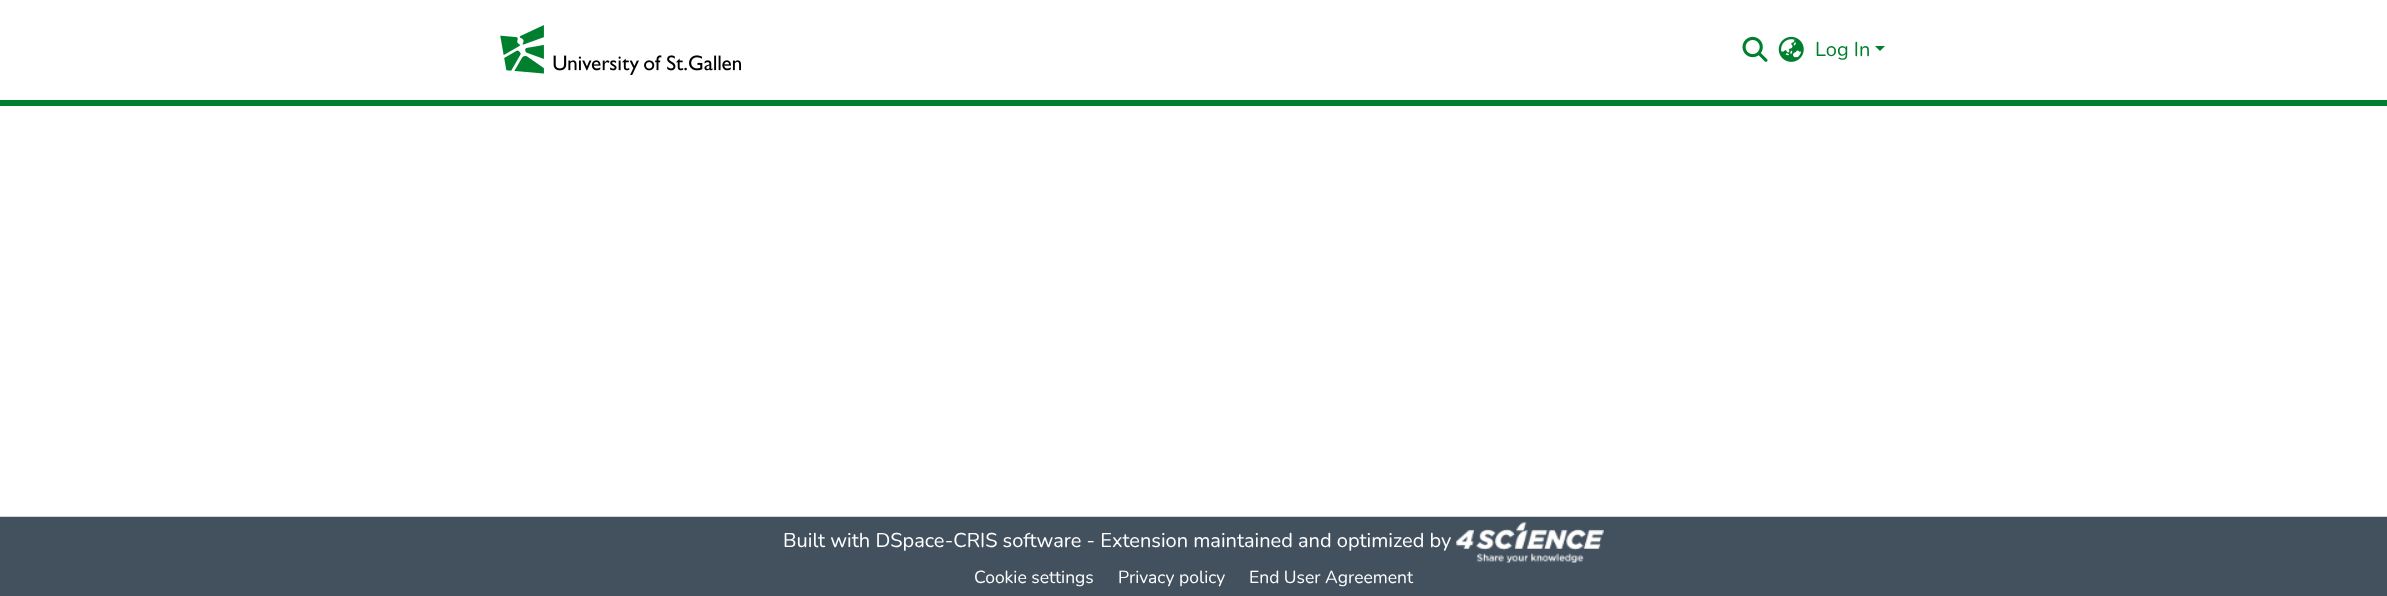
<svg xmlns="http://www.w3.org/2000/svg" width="2387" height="596">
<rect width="100%" height="100%" fill="#fff"/>
<rect y="100" width="2387" height="6" fill="#00802f"/>
<image x="500" y="25" width="241" height="50" href="media/1.png"/>
<image x="1742" y="36" width="26" height="26" href="media/2.png"/>
<image x="1778" y="36" width="26" height="26" href="media/3.png"/>
<text x="1815" y="56" style="font-family:Nunito;font-size:20px;fill:#00802f">Log In</text>
<path d="M1875 46h10l-5 5z" fill="#00802f"/>
<rect y="517" width="2387" height="79" fill="#43515f"/>
<rect y="516" width="2387" height="1" fill="#ced4da"/>
<text x="783" y="547" style="font-family:Nunito;font-size:20px;fill:#fff">Built with DSpace-CRIS software - Extension maintained and optimized by</text>
<image x="1456" y="522" width="148" height="41" href="media/4.png"/>
<text x="974" y="583" style="font-family:Nunito;font-size:17.5px;fill:#fff">Cookie settings</text>
<rect x="1105" y="563" width="1" height="28" fill="#495057"/>
<text x="1118" y="583" style="font-family:Nunito;font-size:17.5px;fill:#fff">Privacy policy</text>
<rect x="1236" y="563" width="1" height="28" fill="#495057"/>
<text x="1249" y="583" style="font-family:Nunito;font-size:17.5px;fill:#fff">End User Agreement</text>
</svg>
